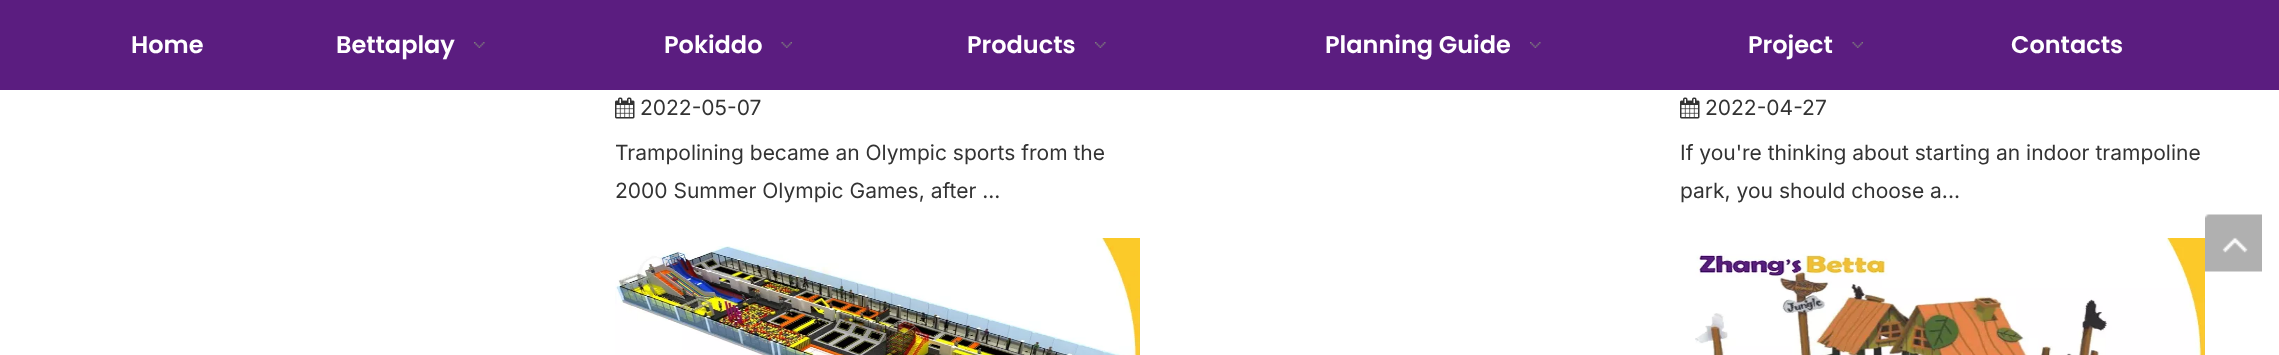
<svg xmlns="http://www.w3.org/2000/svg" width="2279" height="355">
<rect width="100%" height="100%" fill="#fff"/>
<rect width="2279" height="90" fill="#5b1d80"/>
<text x="131" y="53" style="font-family:Poppins;font-size:24px;font-weight:600;fill:#fff">Home</text>
<text x="336" y="53" style="font-family:Poppins;font-size:24px;font-weight:600;fill:#fff">Bettaplay</text>
<image x="474" y="42" width="11" height="6" href="media/1.png"/>
<text x="664" y="53" style="font-family:Poppins;font-size:24px;font-weight:600;fill:#fff">Pokiddo</text>
<image x="781" y="42" width="11" height="6" href="media/2.png"/>
<text x="967" y="53" style="font-family:Poppins;font-size:24px;font-weight:600;fill:#fff">Products</text>
<image x="1095" y="42" width="11" height="6" href="media/1.png"/>
<text x="1325" y="53" style="font-family:Poppins;font-size:24px;font-weight:600;fill:#fff">Planning Guide</text>
<image x="1530" y="42" width="11" height="6" href="media/1.png"/>
<text x="1748" y="53" style="font-family:Poppins;font-size:24px;font-weight:600;fill:#fff">Project</text>
<image x="1852" y="42" width="11" height="6" href="media/2.png"/>
<text x="2011" y="53" style="font-family:Poppins;font-size:24px;font-weight:600;fill:#fff">Contacts</text>
<image x="615" y="97" width="20" height="22" href="media/3.png"/>
<text x="640" y="115" style="font-family:Inter;font-size:21px;fill:#333">2022-05-07</text>
<text x="615" y="160" style="font-family:Inter;font-size:21px;fill:#333">Trampolining became an Olympic sports from the</text>
<text x="615" y="198" style="font-family:Inter;font-size:21px;fill:#333">2000 Summer Olympic Games, after ...</text>
<image x="1680" y="97" width="20" height="22" href="media/3.png"/>
<text x="1705" y="115" style="font-family:Inter;font-size:21px;fill:#333">2022-04-27</text>
<text x="1680" y="160" style="font-family:Inter;font-size:21px;fill:#333">If you're thinking about starting an indoor trampoline</text>
<text x="1680" y="198" style="font-family:Inter;font-size:21px;fill:#333">park, you should choose a...</text>
<image x="615" y="238" width="525" height="117" href="media/4.png"/>
<image x="1695" y="238" width="510" height="117" href="media/5.png"/>
<image x="2205" y="214" width="57" height="58" href="media/6.png"/>
</svg>
